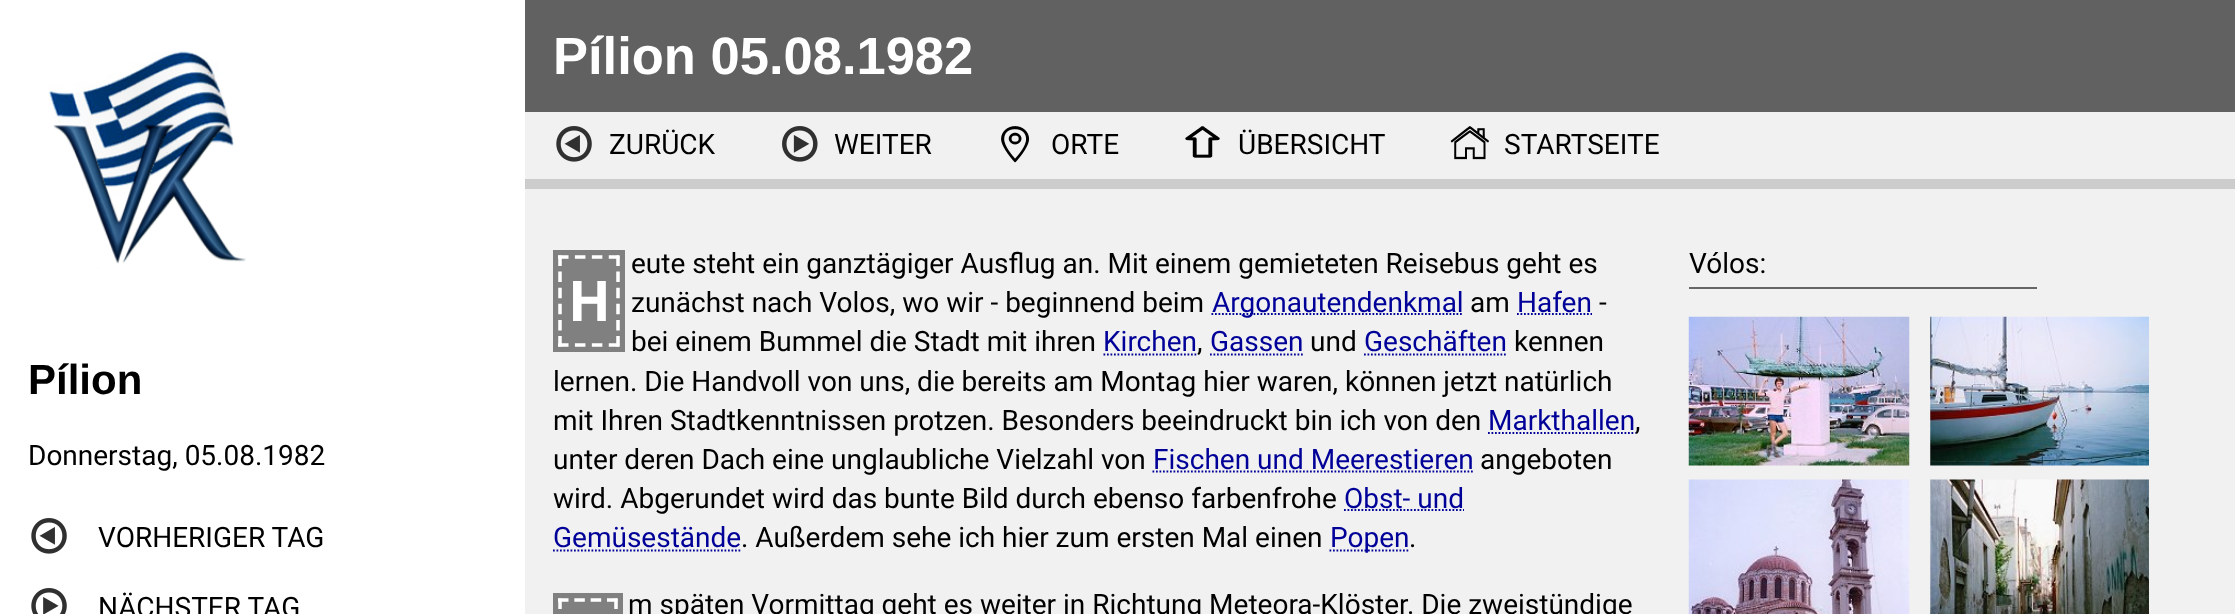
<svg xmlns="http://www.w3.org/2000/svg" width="2235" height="614">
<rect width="100%" height="100%" fill="#f1f1f1"/>
<rect width="525" height="614" fill="#fff"/>
<image x="48" y="51" width="198" height="217" href="media/1.png"/>
<text x="28" y="394" style="font-family:Liberation Sans;font-size:42px;font-weight:bold;fill:#000">Pílion</text>
<text x="28" y="465" style="font-family:Roboto;font-size:28px;fill:#000">Donnerstag, 05.08.1982</text>
<image x="31" y="518" width="36" height="36" href="media/2.png"/>
<text x="98" y="547" style="font-family:Roboto;font-size:28px;fill:#000">VORHERIGER TAG</text>
<image x="31" y="588" width="36" height="26" href="media/3.png"/>
<text x="98" y="617" style="font-family:Roboto;font-size:28px;fill:#000">NÄCHSTER TAG</text>
<rect x="525" width="1710" height="112" fill="#616161"/>
<text x="553" y="74" style="font-family:Liberation Sans;font-size:52.5px;font-weight:bold;fill:#fff">Pílion 05.08.1982</text>
<image x="556" y="126" width="36" height="36" href="media/4.png"/>
<text x="609" y="154" style="font-family:Roboto;font-size:28px;fill:#000">ZURÜCK</text>
<image x="782" y="126" width="36" height="36" href="media/5.png"/>
<text x="834" y="154" style="font-family:Roboto;font-size:28px;fill:#000">WEITER</text>
<image x="1001" y="126" width="29" height="37" href="media/6.png"/>
<text x="1051" y="154" style="font-family:Roboto;font-size:28px;fill:#000">ORTE</text>
<image x="1185" y="126" width="35" height="32" href="media/7.png"/>
<text x="1238" y="154" style="font-family:Roboto;font-size:28px;fill:#000">ÜBERSICHT</text>
<image x="1450" y="126" width="39" height="34" href="media/8.png"/>
<text x="1504" y="154" style="font-family:Roboto;font-size:28px;fill:#000">STARTSEITE</text>
<rect x="525" y="179" width="1710" height="10" fill="#ccc"/>
<text x="631" y="273" style="font-family:Roboto;font-size:28px;fill:#000">eute steht ein ganztägiger Ausflug an. Mit einem gemieteten Reisebus geht es</text>
<rect x="556" y="253" width="66" height="96" fill="none" stroke="#808080" stroke-width="6"/>
<rect x="559" y="256" width="60" height="90" fill="#808080"/>
<path d="M558 257h61.5" fill="none" stroke="#fff" stroke-width="3.5" stroke-dasharray="10.5 6.42"/>
<path d="M618 255.5v91" fill="none" stroke="#fff" stroke-width="3.5" stroke-dasharray="10.5 5.6"/>
<path d="M558 345h61.5" fill="none" stroke="#fff" stroke-width="3.5" stroke-dasharray="10.5 6.42"/>
<path d="M560 255.5v91" fill="none" stroke="#fff" stroke-width="3.5" stroke-dasharray="10.5 5.6"/>
<text x="568" y="321" style="font-family:Noto Sans;font-size:56px;font-weight:bold;fill:#fff">H</text>
<text x="631" y="312" style="font-family:Roboto;font-size:28px;fill:#000">zunächst nach Volos, wo wir - beginnend beim</text>
<path d="M1211.5 314h251.5" fill="none" stroke="#009" stroke-width="1.8" stroke-dasharray="1.75 1.75"/>
<text x="1212" y="312" style="font-family:Roboto;font-size:28px;fill:#009">Argonautendenkmal</text>
<text x="1470" y="312" style="font-family:Roboto;font-size:28px;fill:#000">am</text>
<text x="1517" y="312" style="font-family:Roboto;font-size:28px;fill:#009">Hafen</text>
<path d="M1517 314h75" fill="none" stroke="#009" stroke-width="1.8" stroke-dasharray="1.75 1.75"/>
<text x="1599" y="312" style="font-family:Roboto;font-size:28px;fill:#000">-</text>
<text x="631" y="351" style="font-family:Roboto;font-size:28px;fill:#000">bei einem Bummel die Stadt mit ihren</text>
<text x="1103" y="351" style="font-family:Roboto;font-size:28px;fill:#009">Kirchen</text>
<path d="M1103.5 354.5h94" fill="none" stroke="#009" stroke-width="1.8" stroke-dasharray="1.75 1.75"/>
<text x="1197" y="351" style="font-family:Roboto;font-size:28px;fill:#000">,</text>
<text x="1210" y="351" style="font-family:Roboto;font-size:28px;fill:#009">Gassen</text>
<path d="M1210 354.5h93.5" fill="none" stroke="#009" stroke-width="1.8" stroke-dasharray="1.75 1.75"/>
<text x="1310" y="351" style="font-family:Roboto;font-size:28px;fill:#000">und</text>
<text x="1364" y="351" style="font-family:Roboto;font-size:28px;fill:#009">Geschäften</text>
<path d="M1364 354.5h143" fill="none" stroke="#009" stroke-width="1.8" stroke-dasharray="1.75 1.75"/>
<text x="1514" y="351" style="font-family:Roboto;font-size:28px;fill:#000">kennen</text>
<text x="553" y="391" style="font-family:Roboto;font-size:28px;fill:#000">lernen. Die Handvoll von uns, die bereits am Montag hier waren, können jetzt natürlich</text>
<text x="553" y="430" style="font-family:Roboto;font-size:28px;fill:#000">mit Ihren Stadtkenntnissen protzen. Besonders beeindruckt bin ich von den</text>
<text x="1488" y="430" style="font-family:Roboto;font-size:28px;fill:#009">Markthallen</text>
<path d="M1488 433h147.5" fill="none" stroke="#009" stroke-width="1.8" stroke-dasharray="1.75 1.75"/>
<text x="1635" y="430" style="font-family:Roboto;font-size:28px;fill:#000">,</text>
<text x="553" y="469" style="font-family:Roboto;font-size:28px;fill:#000">unter deren Dach eine unglaubliche Vielzahl von</text>
<text x="1153" y="469" style="font-family:Roboto;font-size:28px;fill:#009">Fischen und Meerestieren</text>
<path d="M1152.5 471.5h321" fill="none" stroke="#009" stroke-width="1.8" stroke-dasharray="1.75 1.75"/>
<text x="1480" y="469" style="font-family:Roboto;font-size:28px;fill:#000">angeboten</text>
<text x="553" y="508" style="font-family:Roboto;font-size:28px;fill:#000">wird. Abgerundet wird das bunte Bild durch ebenso farbenfrohe</text>
<text x="1344" y="508" style="font-family:Roboto;font-size:28px;fill:#009">Obst- und</text>
<path d="M1344 510h120" fill="none" stroke="#009" stroke-width="1.8" stroke-dasharray="1.75 1.75"/>
<text x="553" y="547" style="font-family:Roboto;font-size:28px;fill:#009">Gemüsestände</text>
<path d="M553 550.5h188" fill="none" stroke="#009" stroke-width="1.8" stroke-dasharray="1.75 1.75"/>
<text x="741" y="547" style="font-family:Roboto;font-size:28px;fill:#000">. Außerdem sehe ich hier zum ersten Mal einen</text>
<path d="M1329.5 550.5h79.5" fill="none" stroke="#009" stroke-width="1.8" stroke-dasharray="1.75 1.75"/>
<text x="1330" y="547" style="font-family:Roboto;font-size:28px;fill:#009">Popen</text>
<text x="1409" y="547" style="font-family:Roboto;font-size:28px;fill:#000">.</text>
<rect x="556" y="596" width="64" height="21" fill="none" stroke="#808080" stroke-width="6"/>
<rect x="559" y="599" width="58" height="15" fill="#808080"/>
<path d="M558 600h60" fill="none" stroke="#fff" stroke-width="3.5" stroke-dasharray="10.5 5.83"/>
<path d="M616 598.5v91m-56-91v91" fill="none" stroke="#fff" stroke-width="3.5" stroke-dasharray="10.5 5.6"/>
<text x="628" y="614" style="font-family:Roboto;font-size:28px;fill:#000">m späten Vormittag geht es weiter in Richtung Meteora-Klöster. Die zweistündige</text>
<text x="1689" y="273" style="font-family:Roboto;font-size:28px;fill:#000">Vólos:</text>
<rect x="1689" y="287" width="348" height="2" fill="#666"/>
<image x="1688" y="316" width="222" height="150" href="media/9.png"/>
<image x="1930" y="316" width="219" height="150" href="media/10.png"/>
<image x="1688" y="479" width="222" height="135" href="media/11.png"/>
<image x="1930" y="479" width="219" height="135" href="media/12.png"/>
</svg>
